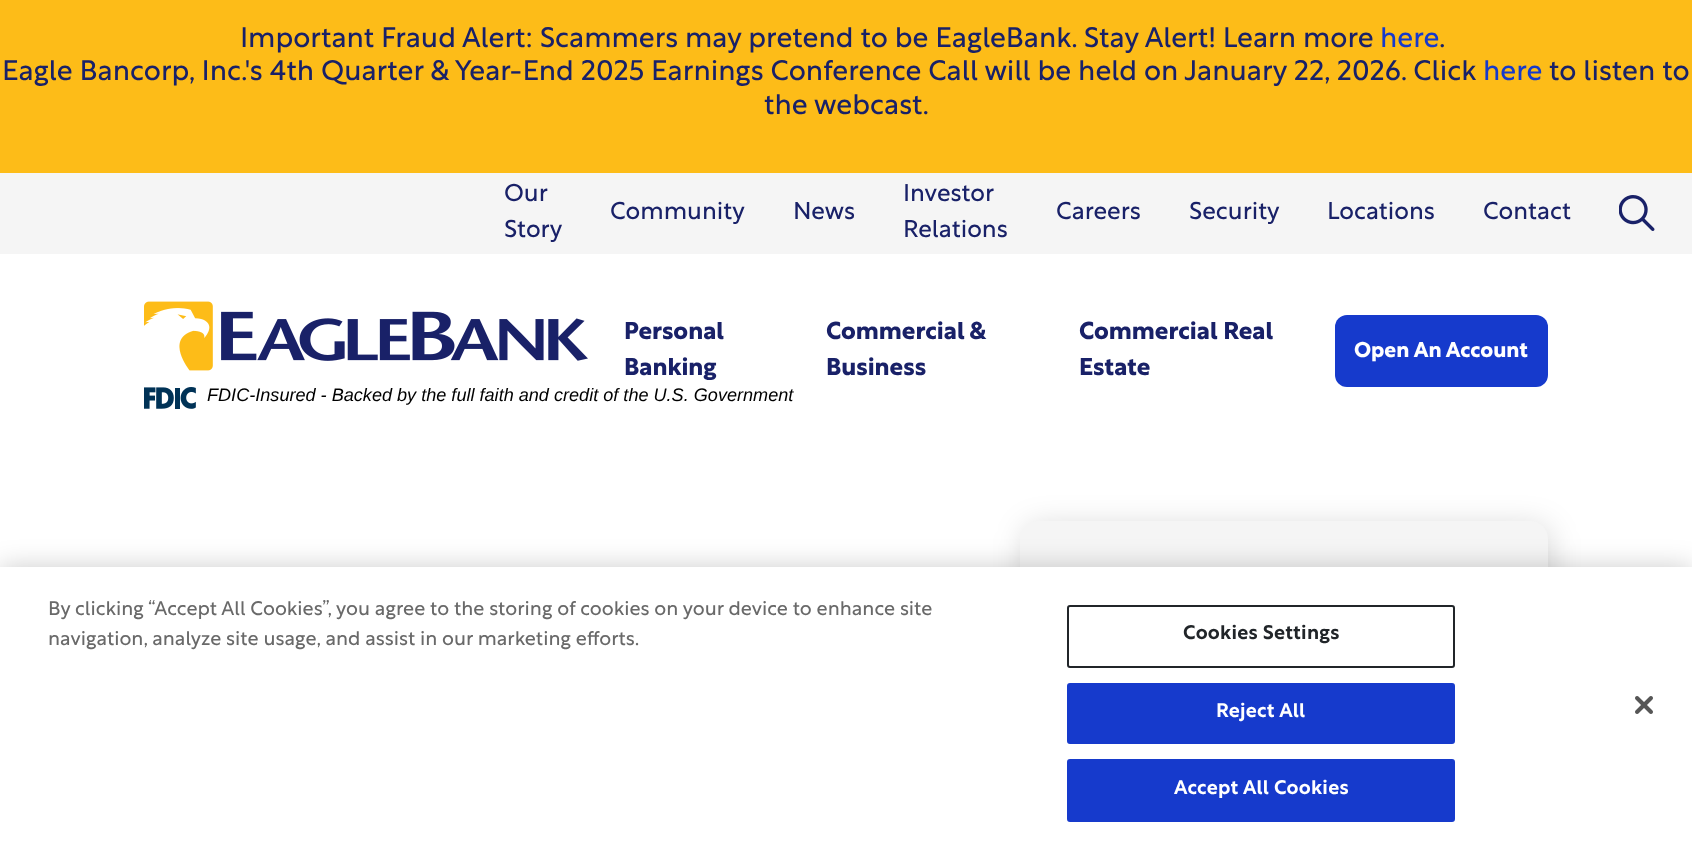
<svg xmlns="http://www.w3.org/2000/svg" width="1692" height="852">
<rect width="100%" height="100%" fill="#fff"/>
<rect width="1692" height="173" fill="#fdbc18"/>
<text x="240" y="47" style="font-family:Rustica;font-size:28px;fill:#192168">Important Fraud Alert: Scammers may pretend to be EagleBank. Stay Alert! Learn more</text>
<text x="1380" y="47" style="font-family:Rustica;font-size:28px;fill:#163acc">here</text>
<text x="1439" y="47" style="font-family:Rustica;font-size:28px;fill:#192168">.</text>
<text x="2" y="80" style="font-family:Rustica;font-size:28px;fill:#192168">Eagle Bancorp, Inc.'s 4th Quarter &amp; Year-End 2025 Earnings Conference Call will be held on January 22, 2026. Click</text>
<text x="1483" y="80" style="font-family:Rustica;font-size:28px;fill:#163acc">here</text>
<text x="1549" y="80" style="font-family:Rustica;font-size:28px;fill:#192168">to listen to</text>
<text x="764" y="114" style="font-family:Rustica;font-size:28px;fill:#192168">the webcast.</text>
<rect y="173" width="1692" height="81" fill="#f5f5f5"/>
<text x="504" y="201" style="font-family:Rustica;font-size:24px;fill:#192168">Our</text>
<text x="504" y="237" style="font-family:Rustica;font-size:24px;fill:#192168">Story</text>
<text x="610" y="219" style="font-family:Rustica;font-size:24px;fill:#192168">Community</text>
<text x="793" y="219" style="font-family:Rustica;font-size:24px;fill:#192168">News</text>
<text x="903" y="201" style="font-family:Rustica;font-size:24px;fill:#192168">Investor</text>
<text x="903" y="237" style="font-family:Rustica;font-size:24px;fill:#192168">Relations</text>
<text x="1056" y="219" style="font-family:Rustica;font-size:24px;fill:#192168">Careers</text>
<text x="1189" y="219" style="font-family:Rustica;font-size:24px;fill:#192168">Security</text>
<text x="1327" y="219" style="font-family:Rustica;font-size:24px;fill:#192168">Locations</text>
<text x="1483" y="219" style="font-family:Rustica;font-size:24px;fill:#192168">Contact</text>
<image x="1619" y="195" width="36" height="36" href="media/1.png"/>
<text x="624" y="339" style="font-family:Rustica;font-size:24px;font-weight:bold;fill:#192168">Personal</text>
<text x="624" y="375" style="font-family:Rustica;font-size:24px;font-weight:bold;fill:#192168">Banking</text>
<text x="826" y="339" word-spacing="-1" style="font-family:Rustica;font-size:24px;font-weight:bold;fill:#192168">Commercial &amp;</text>
<text x="826" y="375" style="font-family:Rustica;font-size:24px;font-weight:bold;fill:#192168">Business</text>
<text x="1079" y="339" style="font-family:Rustica;font-size:24px;font-weight:bold;fill:#192168">Commercial Real</text>
<text x="1079" y="375" style="font-family:Rustica;font-size:24px;font-weight:bold;fill:#192168">Estate</text>
<rect x="1335" y="315" width="213" height="72" rx="12" fill="#163acc"/>
<text x="1354" y="357" style="font-family:Rustica;font-size:21px;font-weight:bold;fill:#fff">Open An Account</text>
<image x="144" y="301" width="444" height="70" href="media/2.png"/>
<image x="144" y="387" width="52" height="22" href="media/3.png"/>
<text x="207" y="401" style="font-family:Liberation Sans;font-size:18.1px;font-style:italic;fill:#000">FDIC-Insured - Backed by the full faith and credit of the U.S. Government</text>
<rect x="1023" y="525" width="528" height="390" rx="18" fill="#00000026" filter="blur(15px)"/>
<rect x="1020" y="521" width="528" height="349" rx="18" fill="#f5f5f5"/>
<rect y="567" width="1692" height="285" fill="#00000033" filter="blur(13.5px)"/>
<rect y="567" width="1692" height="285" fill="#fff"/>
<text x="48" y="615" style="font-family:Rustica;font-size:19.5px;fill:#696969">By clicking “Accept All Cookies”, you agree to the storing of cookies on your device to enhance site</text>
<text x="48" y="645" style="font-family:Rustica;font-size:19.5px;fill:#696969">navigation, analyze site usage, and assist in our marketing efforts.</text>
<rect x="1068" y="606" width="386" height="61" rx="2" fill="none" stroke="#212529" stroke-width="2"/>
<text x="1183" y="639" style="font-family:Rustica;font-size:19.5px;font-weight:600;letter-spacing:0.25px;fill:#212529">Cookies Settings</text>
<rect x="1068" y="684" width="386" height="59" rx="2" fill="#163acc" stroke="#163acc" stroke-width="2"/>
<text x="1216" y="717" style="font-family:Rustica;font-size:19.5px;font-weight:600;letter-spacing:0.25px;fill:#fff">Reject All</text>
<rect x="1068" y="760" width="386" height="61" rx="2" fill="#163acc" stroke="#163acc" stroke-width="2"/>
<text x="1174" y="794" style="font-family:Rustica;font-size:19.5px;font-weight:600;letter-spacing:0.25px;fill:#fff">Accept All Cookies</text>
<image x="1635" y="696" width="18" height="18" href="media/4.png"/>
</svg>
